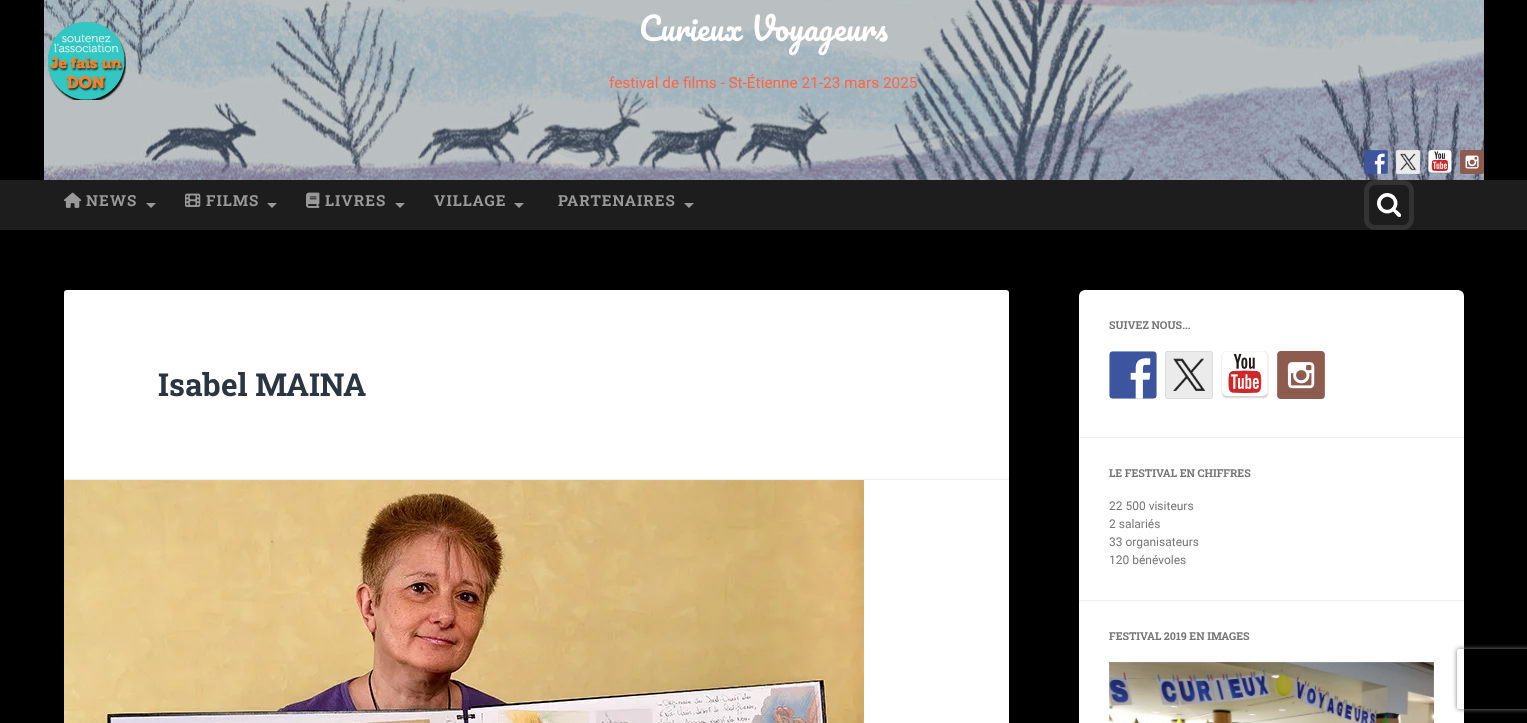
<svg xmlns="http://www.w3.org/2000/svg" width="1527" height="723">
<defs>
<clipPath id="clip1"><path d="M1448 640h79v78h-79zm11 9h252c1 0 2 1 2 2v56c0 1-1 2-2 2h-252c-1 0-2-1-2-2v-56c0-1 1-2 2-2z" clip-rule="evenodd"/></clipPath>
</defs>
<rect width="100%" height="100%" fill="#000"/>
<image x="44" y="0" width="1440" height="180" href="media/1.png"/>
<image x="48" y="22" width="78" height="78" href="media/2.png"/>
<text x="639" y="41" style="font-family:Pacifico;font-size:31.5px;fill:#fff">Curieux Voyageurs</text>
<text x="609" y="88" style="font-family:Roboto;font-size:15.4px;fill:#f64">festival de films - St-Étienne 21-23 mars 2025</text>
<image x="1364" y="150" width="24" height="24" href="media/3.png"/>
<image x="1396" y="150" width="24" height="24" href="media/4.png"/>
<image x="1428" y="150" width="24" height="24" href="media/5.png"/>
<image x="1460" y="150" width="24" height="24" href="media/6.png"/>
<rect y="180" width="1527" height="50" fill="#1d1d1d"/>
<image x="64" y="192" width="18" height="16" href="media/7.png"/>
<text x="86" y="206" style="font-family:Roboto Slab;font-size:15.25px;font-weight:bold;letter-spacing:1px;fill:#999">NEWS</text>
<path d="M146 203h10l-5 5z" fill="#999"/>
<image x="185" y="193" width="16" height="14" href="media/8.png"/>
<text x="206" y="206" style="font-family:Roboto Slab;font-size:15.25px;font-weight:bold;letter-spacing:1px;fill:#999">FILMS</text>
<path d="M267 203h10l-5 5z" fill="#999"/>
<image x="306" y="192" width="14" height="16" href="media/9.png"/>
<text x="325" y="206" style="font-family:Roboto Slab;font-size:15.25px;font-weight:bold;letter-spacing:1px;fill:#999">LIVRES</text>
<path d="M395 203h10l-5 5z" fill="#999"/>
<text x="434" y="206" style="font-family:Roboto Slab;font-size:15.25px;font-weight:bold;letter-spacing:1px;fill:#999">VILLAGE</text>
<path d="M514 203h10l-5 5z" fill="#999"/>
<text x="558" y="206" style="font-family:Roboto Slab;font-size:15.25px;font-weight:bold;letter-spacing:1px;fill:#999">PARTENAIRES</text>
<path d="M684 203h10l-5 5z" fill="#999"/>
<image x="1377" y="193" width="24" height="24" href="media/10.png"/>
<rect x="1366.5" y="182.5" width="45" height="45" rx="8.5" fill="none" stroke="#333" stroke-width="5"/>
<rect x="64" y="290" width="945" height="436" rx="3" fill="#fff"/>
<rect x="64" y="479" width="945" height="1" fill="#eee"/>
<text x="158" y="396" style="font-family:Roboto Slab;font-size:31.5px;font-weight:bold;fill:#2b3542">Isabel MAINA</text>
<image x="64" y="480" width="800" height="243" href="media/11.png"/>
<rect x="1079" y="290" width="385" height="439" rx="6" fill="#fff"/>
<text x="1109" y="329" style="font-family:Roboto Slab;font-size:10.75px;font-weight:bold;fill:#767676">SUIVEZ NOUS...</text>
<image x="1109" y="351" width="48" height="48" href="media/12.png"/>
<image x="1165" y="351" width="48" height="48" href="media/13.png"/>
<image x="1221" y="351" width="48" height="48" href="media/14.png"/>
<image x="1277" y="351" width="48" height="48" href="media/15.png"/>
<rect x="1079" y="437" width="385" height="1" fill="#eee"/>
<text x="1109" y="477" style="font-family:Roboto Slab;font-size:10.75px;font-weight:bold;fill:#767676">LE FESTIVAL EN CHIFFRES</text>
<text x="1109" y="510" style="font-family:Roboto;font-size:12px;fill:#767676">22 500 visiteurs</text>
<text x="1109" y="528" style="font-family:Roboto;font-size:12px;fill:#767676">2 salariés</text>
<text x="1109" y="546" style="font-family:Roboto;font-size:12px;fill:#767676">33 organisateurs</text>
<text x="1109" y="564" style="font-family:Roboto;font-size:12px;fill:#767676">120 bénévoles</text>
<rect x="1079" y="600" width="385" height="1" fill="#eee"/>
<text x="1109" y="640" style="font-family:Roboto Slab;font-size:10.75px;font-weight:bold;fill:#767676">FESTIVAL 2019 EN IMAGES</text>
<image x="1109" y="662" width="325" height="61" href="media/16.png"/>
<g clip-path="url(#clip1)">
<rect x="1457" y="649" width="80" height="60" rx="2" fill="#808080" filter="blur(2.5px)"/>
</g>
</svg>
